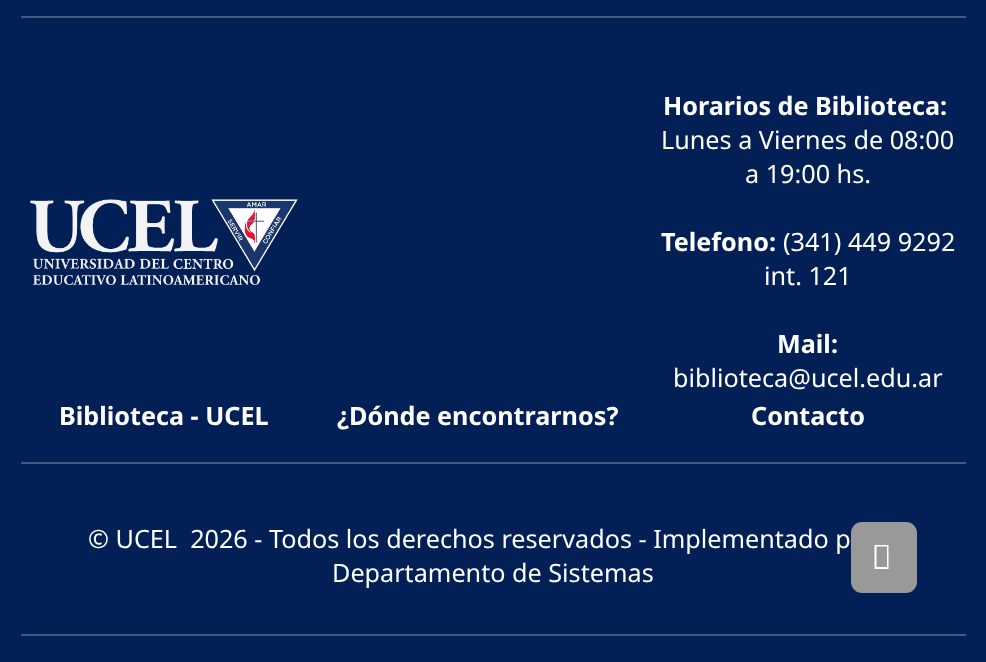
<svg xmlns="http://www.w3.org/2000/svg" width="986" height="662">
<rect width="100%" height="100%" fill="#022056"/>
<rect x="21" y="16" width="945" height="2" fill="#415880"/>
<image x="30" y="199" width="268" height="86" href="media/1.png"/>
<text x="663" y="115" style="font-family:Noto Sans;font-size:25.2px;font-weight:bold;fill:#fff">Horarios de Biblioteca:</text>
<text x="661" y="149" style="font-family:Noto Sans;font-size:25.2px;fill:#fff">Lunes a Viernes de 08:00</text>
<text x="745" y="183" style="font-family:Noto Sans;font-size:25.2px;fill:#fff">a 19:00 hs.</text>
<text x="661" y="251" style="font-family:Noto Sans;font-size:25.2px;font-weight:bold;fill:#fff">Telefono:</text>
<text x="783" y="251" style="font-family:Noto Sans;font-size:25.2px;fill:#fff">(341) 449 9292</text>
<text x="764" y="285" style="font-family:Noto Sans;font-size:25.2px;fill:#fff">int. 121</text>
<text x="777" y="353" style="font-family:Noto Sans;font-size:25.2px;font-weight:bold;fill:#fff">Mail:</text>
<text x="673" y="387" style="font-family:Noto Sans;font-size:25.2px;fill:#fff">biblioteca@ucel.edu.ar</text>
<text x="59" y="425" style="font-family:Noto Sans;font-size:25.2px;font-weight:bold;fill:#fff">Biblioteca - UCEL</text>
<text x="337" y="425" style="font-family:Noto Sans;font-size:25.2px;font-weight:bold;fill:#fff">¿Dónde encontrarnos?</text>
<text x="751" y="425" style="font-family:Noto Sans;font-size:25.2px;font-weight:bold;fill:#fff">Contacto</text>
<rect x="21" y="462" width="945" height="2" fill="#415880"/>
<text x="88" y="548" style="font-family:Noto Sans;font-size:25.2px;fill:#fff" xml:space="preserve">© UCEL  2026 - Todos los derechos reservados - Implementado p</text>
<text x="332" y="582" style="font-family:Noto Sans;font-size:25.2px;fill:#fff">Departamento de Sistemas</text>
<rect x="21" y="634" width="945" height="2" fill="#415880"/>
<rect x="851" y="522" width="66" height="71" rx="11" fill="#999"/>
<path d="M874.5 569v-24h14v24zm2-2h10.5v-20.5h-10.5z" fill="#fff"/>
</svg>
